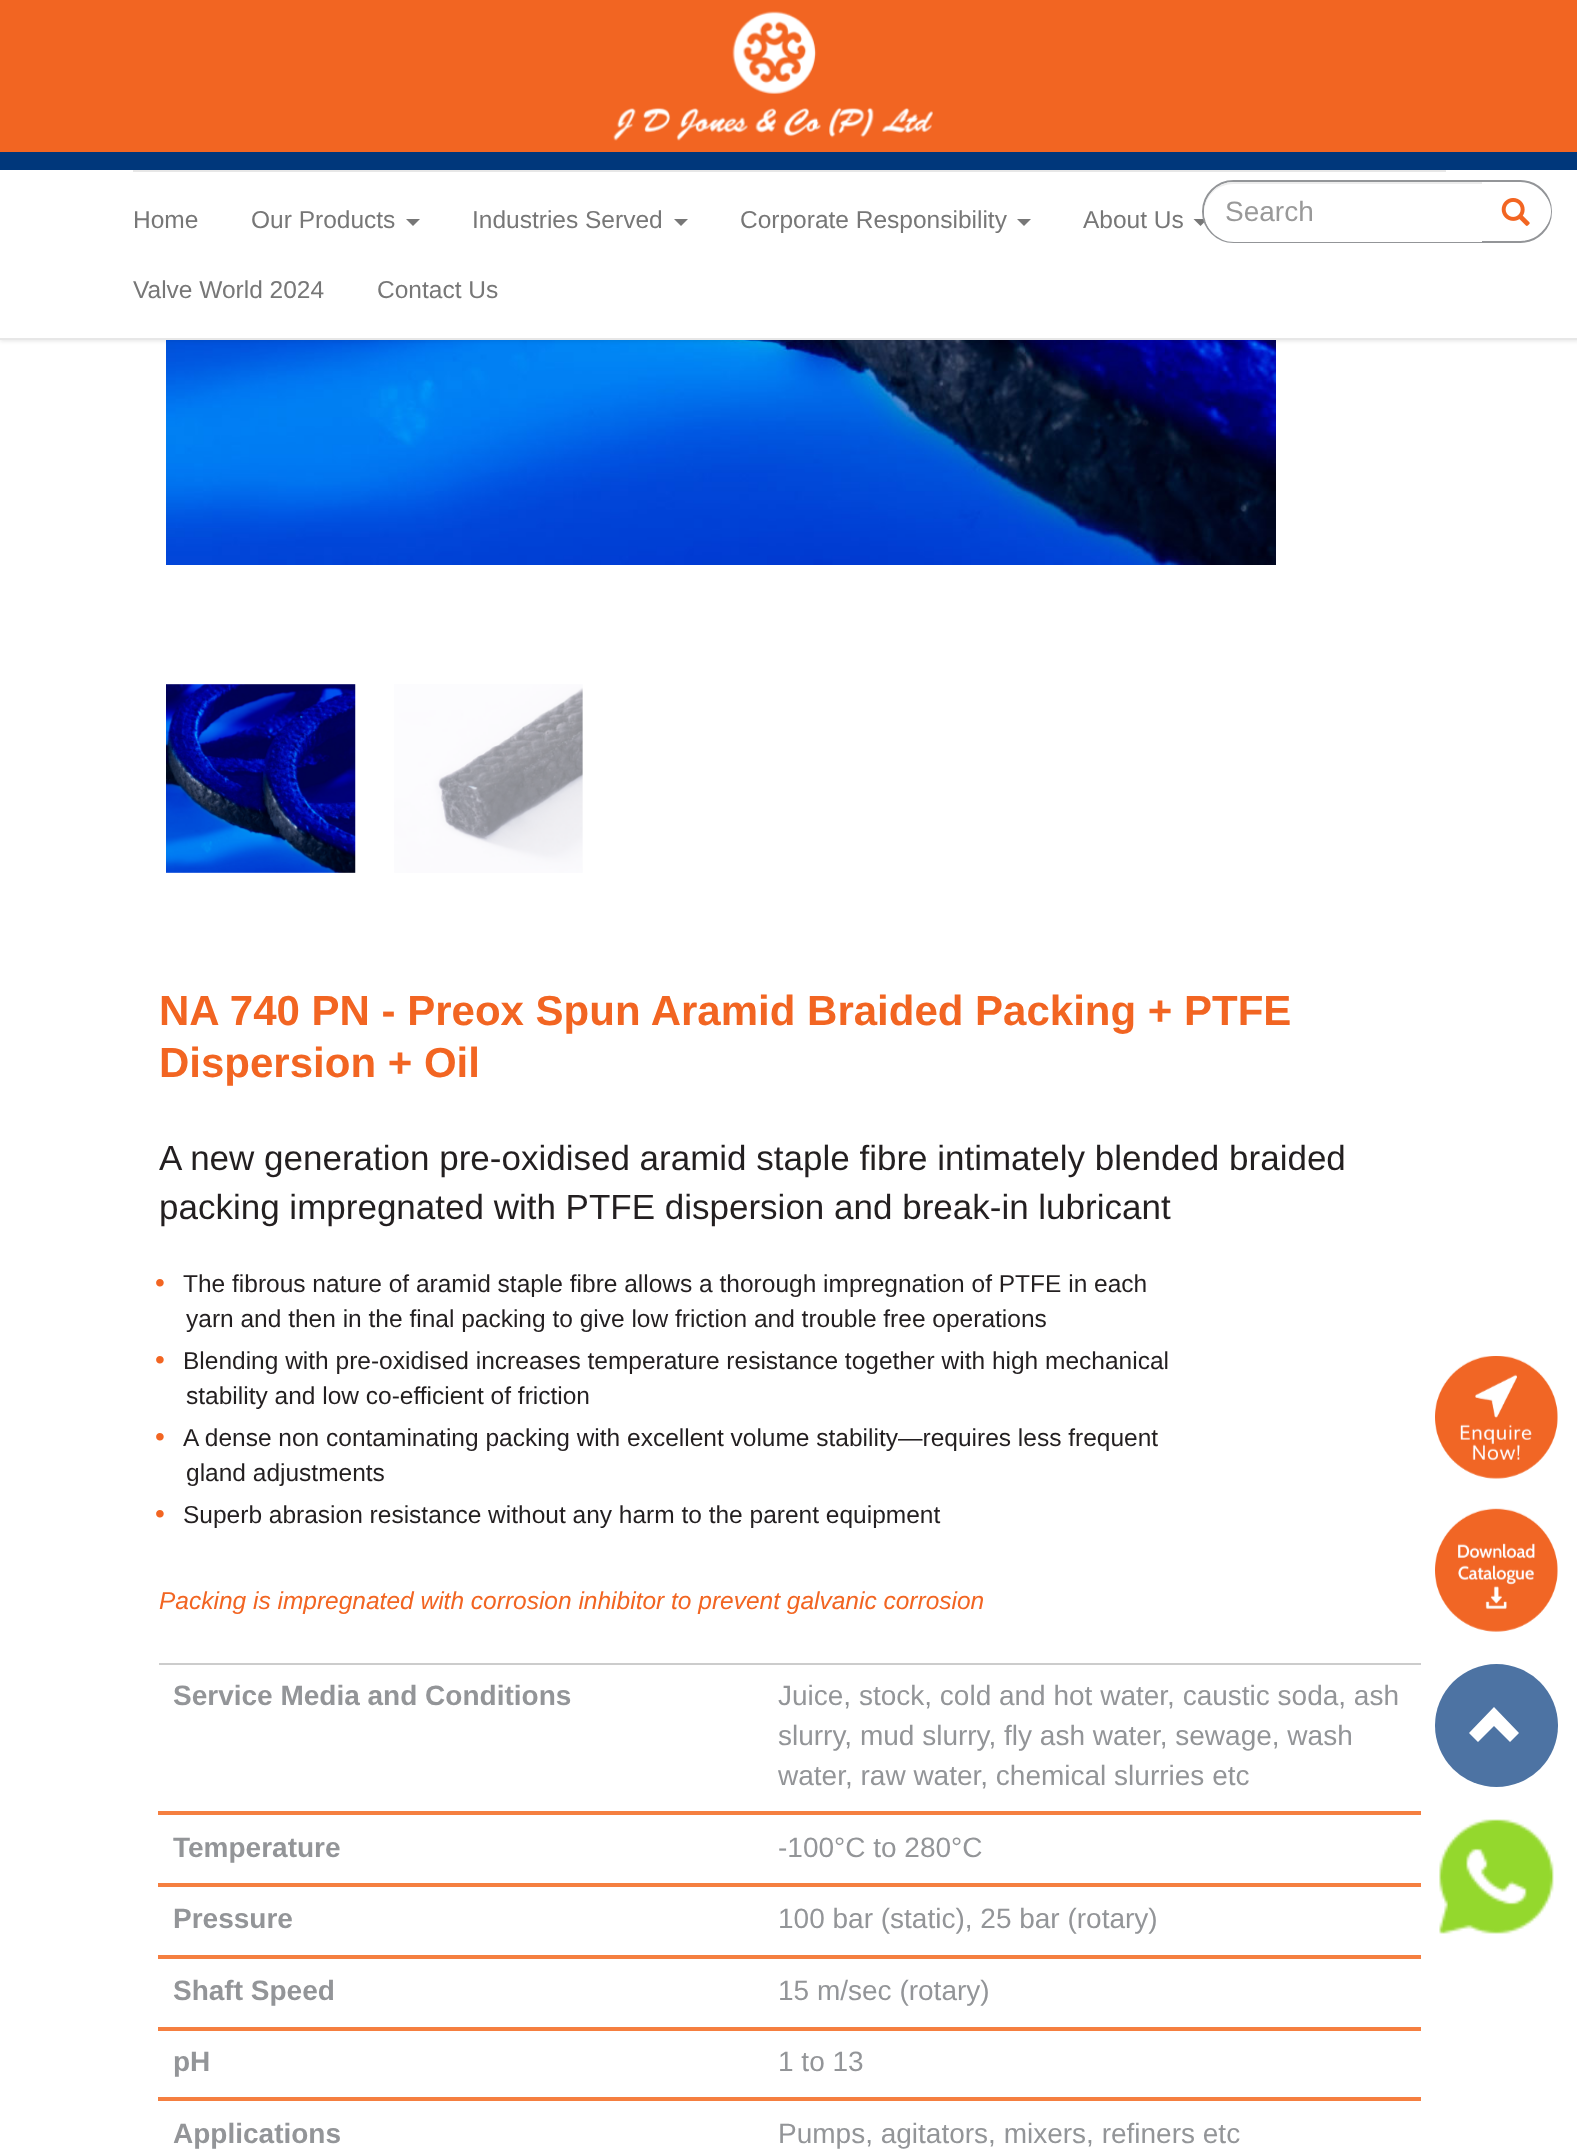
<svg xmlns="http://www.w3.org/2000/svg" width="1577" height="2152">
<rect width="100%" height="100%" fill="#fff"/>
<image x="166" y="340" width="1110" height="225" href="media/3.png"/>
<rect y="2" width="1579" height="339" fill="#0000001a" filter="blur(2px)"/>
<rect y="170" width="1577" height="168" fill="#fff"/>
<rect y="338" width="1577" height="2" fill="#e7e7e7"/>
<rect width="1577" height="152" fill="#f26522"/>
<rect y="152" width="1577" height="18" fill="#00377b"/>
<image x="613" y="11" width="320" height="130" href="media/1.png"/>
<rect x="133" y="170" width="1313" height="2" fill="#e7e7e7"/>
<text x="133" y="228" style="font-family:Liberation Sans;font-size:24.5px;fill:#777">Home</text>
<text x="251" y="228" style="font-family:Liberation Sans;font-size:24.5px;fill:#777">Our Products</text>
<path d="M406 219h14l-7 7z" fill="#777"/>
<text x="472" y="228" style="font-family:Liberation Sans;font-size:24.5px;fill:#777">Industries Served</text>
<path d="M674 219h14l-7 7z" fill="#777"/>
<text x="740" y="228" style="font-family:Liberation Sans;font-size:24.5px;fill:#777">Corporate Responsibility</text>
<path d="M1017 219h14l-7 7z" fill="#777"/>
<text x="1083" y="228" style="font-family:Liberation Sans;font-size:24.5px;fill:#777">About Us</text>
<path d="M1193.5 219h14l-7 7z" fill="#777"/>
<text x="133" y="298" style="font-family:Liberation Sans;font-size:24.5px;fill:#777">Valve World 2024</text>
<text x="377" y="298" style="font-family:Liberation Sans;font-size:24.5px;fill:#777">Contact Us</text>
<rect x="1203" y="181" width="348" height="61" rx="30.5" fill="none" stroke="#939598" stroke-width="2"/>
<path d="M1234 182h248v60h-248c-16.5 0-30-13.5-30-30c0-16.5 13.5-30 30-30z" fill="#fff"/>
<path d="M1234 184h248v-2h-248c-17 0-30 13-30 30v1c1-17 13-29 30-29z" fill="#00000012"/>
<text x="1225" y="221" style="font-family:Liberation Sans;font-size:28px;fill:#999">Search</text>
<path d="M1481 187h45.5c13.5 0 24.5 11 24.5 24.5c0 13.5-11 24.5-24.5 24.5h-45.5z" fill="#fff"/>
<image x="1501" y="198" width="29" height="28" href="media/2.png"/>
<image x="166" y="684" width="190" height="189" href="media/4.png"/>
<image x="394" y="684" width="189" height="189" href="media/5.png"/>
<text x="159" y="1025" style="font-family:Liberation Sans;font-size:42px;font-weight:bold;fill:#f26522">NA 740 PN - Preox Spun Aramid Braided Packing + PTFE</text>
<text x="159" y="1077" style="font-family:Liberation Sans;font-size:42px;font-weight:bold;fill:#f26522">Dispersion + Oil</text>
<text x="159" y="1170" style="font-family:Liberation Sans;font-size:35px;fill:#231f20">A new generation pre-oxidised aramid staple fibre intimately blended braided</text>
<text x="159" y="1219" style="font-family:Liberation Sans;font-size:35px;fill:#231f20">packing impregnated with PTFE dispersion and break-in lubricant</text>
<text x="155" y="1292" style="font-family:Liberation Sans;font-size:28px;fill:#f26522">•</text>
<text x="183" y="1292" style="font-family:Liberation Sans;font-size:24.5px;fill:#231f20">The fibrous nature of aramid staple fibre allows a thorough impregnation of PTFE in each</text>
<text x="186" y="1327" style="font-family:Liberation Sans;font-size:24.5px;fill:#231f20">yarn and then in the final packing to give low friction and trouble free operations</text>
<text x="155" y="1369" style="font-family:Liberation Sans;font-size:28px;fill:#f26522">•</text>
<text x="183" y="1369" style="font-family:Liberation Sans;font-size:24.5px;fill:#231f20">Blending with pre-oxidised increases temperature resistance together with high mechanical</text>
<text x="186" y="1404" style="font-family:Liberation Sans;font-size:24.5px;fill:#231f20">stability and low co-efficient of friction</text>
<text x="155" y="1446" style="font-family:Liberation Sans;font-size:28px;fill:#f26522">•</text>
<text x="183" y="1446" style="font-family:Liberation Sans;font-size:24.5px;fill:#231f20">A dense non contaminating packing with excellent volume stability—requires less frequent</text>
<text x="186" y="1481" style="font-family:Liberation Sans;font-size:24.5px;fill:#231f20">gland adjustments</text>
<text x="155" y="1523" style="font-family:Liberation Sans;font-size:28px;fill:#f26522">•</text>
<text x="183" y="1523" style="font-family:Liberation Sans;font-size:24.5px;fill:#231f20">Superb abrasion resistance without any harm to the parent equipment</text>
<text x="159" y="1609" style="font-family:Liberation Sans;font-size:24.5px;font-style:italic;fill:#f26522">Packing is impregnated with corrosion inhibitor to prevent galvanic corrosion</text>
<rect x="159" y="1663" width="1262" height="2" fill="#ccc"/>
<text x="173" y="1705" style="font-family:Liberation Sans;font-size:28px;font-weight:bold;fill:#939598">Service Media and Conditions</text>
<rect x="158" y="1811" width="1263" height="4" fill="#f57f40"/>
<text x="778" y="1705" style="font-family:Liberation Sans;font-size:28px;fill:#939598">Juice, stock, cold and hot water, caustic soda, ash</text>
<text x="778" y="1745" style="font-family:Liberation Sans;font-size:28px;fill:#939598">slurry, mud slurry, fly ash water, sewage, wash</text>
<text x="778" y="1785" style="font-family:Liberation Sans;font-size:28px;fill:#939598">water, raw water, chemical slurries etc</text>
<text x="173" y="1857" style="font-family:Liberation Sans;font-size:28px;font-weight:bold;fill:#939598">Temperature</text>
<rect x="158" y="1883" width="1263" height="4" fill="#f57f40"/>
<text x="778" y="1857" style="font-family:Liberation Sans;font-size:28px;fill:#939598">-100°C to 280°C</text>
<text x="173" y="1928" style="font-family:Liberation Sans;font-size:28px;font-weight:bold;fill:#939598">Pressure</text>
<rect x="158" y="1955" width="1263" height="4" fill="#f57f40"/>
<text x="778" y="1928" style="font-family:Liberation Sans;font-size:28px;fill:#939598">100 bar (static), 25 bar (rotary)</text>
<text x="173" y="2000" style="font-family:Liberation Sans;font-size:28px;font-weight:bold;fill:#939598">Shaft Speed</text>
<rect x="158" y="2027" width="1263" height="4" fill="#f57f40"/>
<text x="778" y="2000" style="font-family:Liberation Sans;font-size:28px;fill:#939598">15 m/sec (rotary)</text>
<text x="173" y="2071" style="font-family:Liberation Sans;font-size:28px;font-weight:bold;fill:#939598">pH</text>
<rect x="158" y="2097" width="1263" height="4" fill="#f57f40"/>
<text x="778" y="2071" style="font-family:Liberation Sans;font-size:28px;fill:#939598">1 to 13</text>
<text x="173" y="2143" style="font-family:Liberation Sans;font-size:28px;font-weight:bold;fill:#939598">Applications</text>
<text x="778" y="2143" style="font-family:Liberation Sans;font-size:28px;fill:#939598">Pumps, agitators, mixers, refiners etc</text>
<image x="1435" y="1356" width="123" height="123" href="media/6.png"/>
<image x="1435" y="1508" width="123" height="124" href="media/7.png"/>
<circle cx="1496.5" cy="1725.5" r="61.5" fill="#4d73a3"/>
<path d="M1519 1733l-9 9l-16-16l-16 16l-9-9l25-26z" fill="#fff"/>
<image x="1439" y="1819" width="115" height="115" href="media/8.png"/>
</svg>
